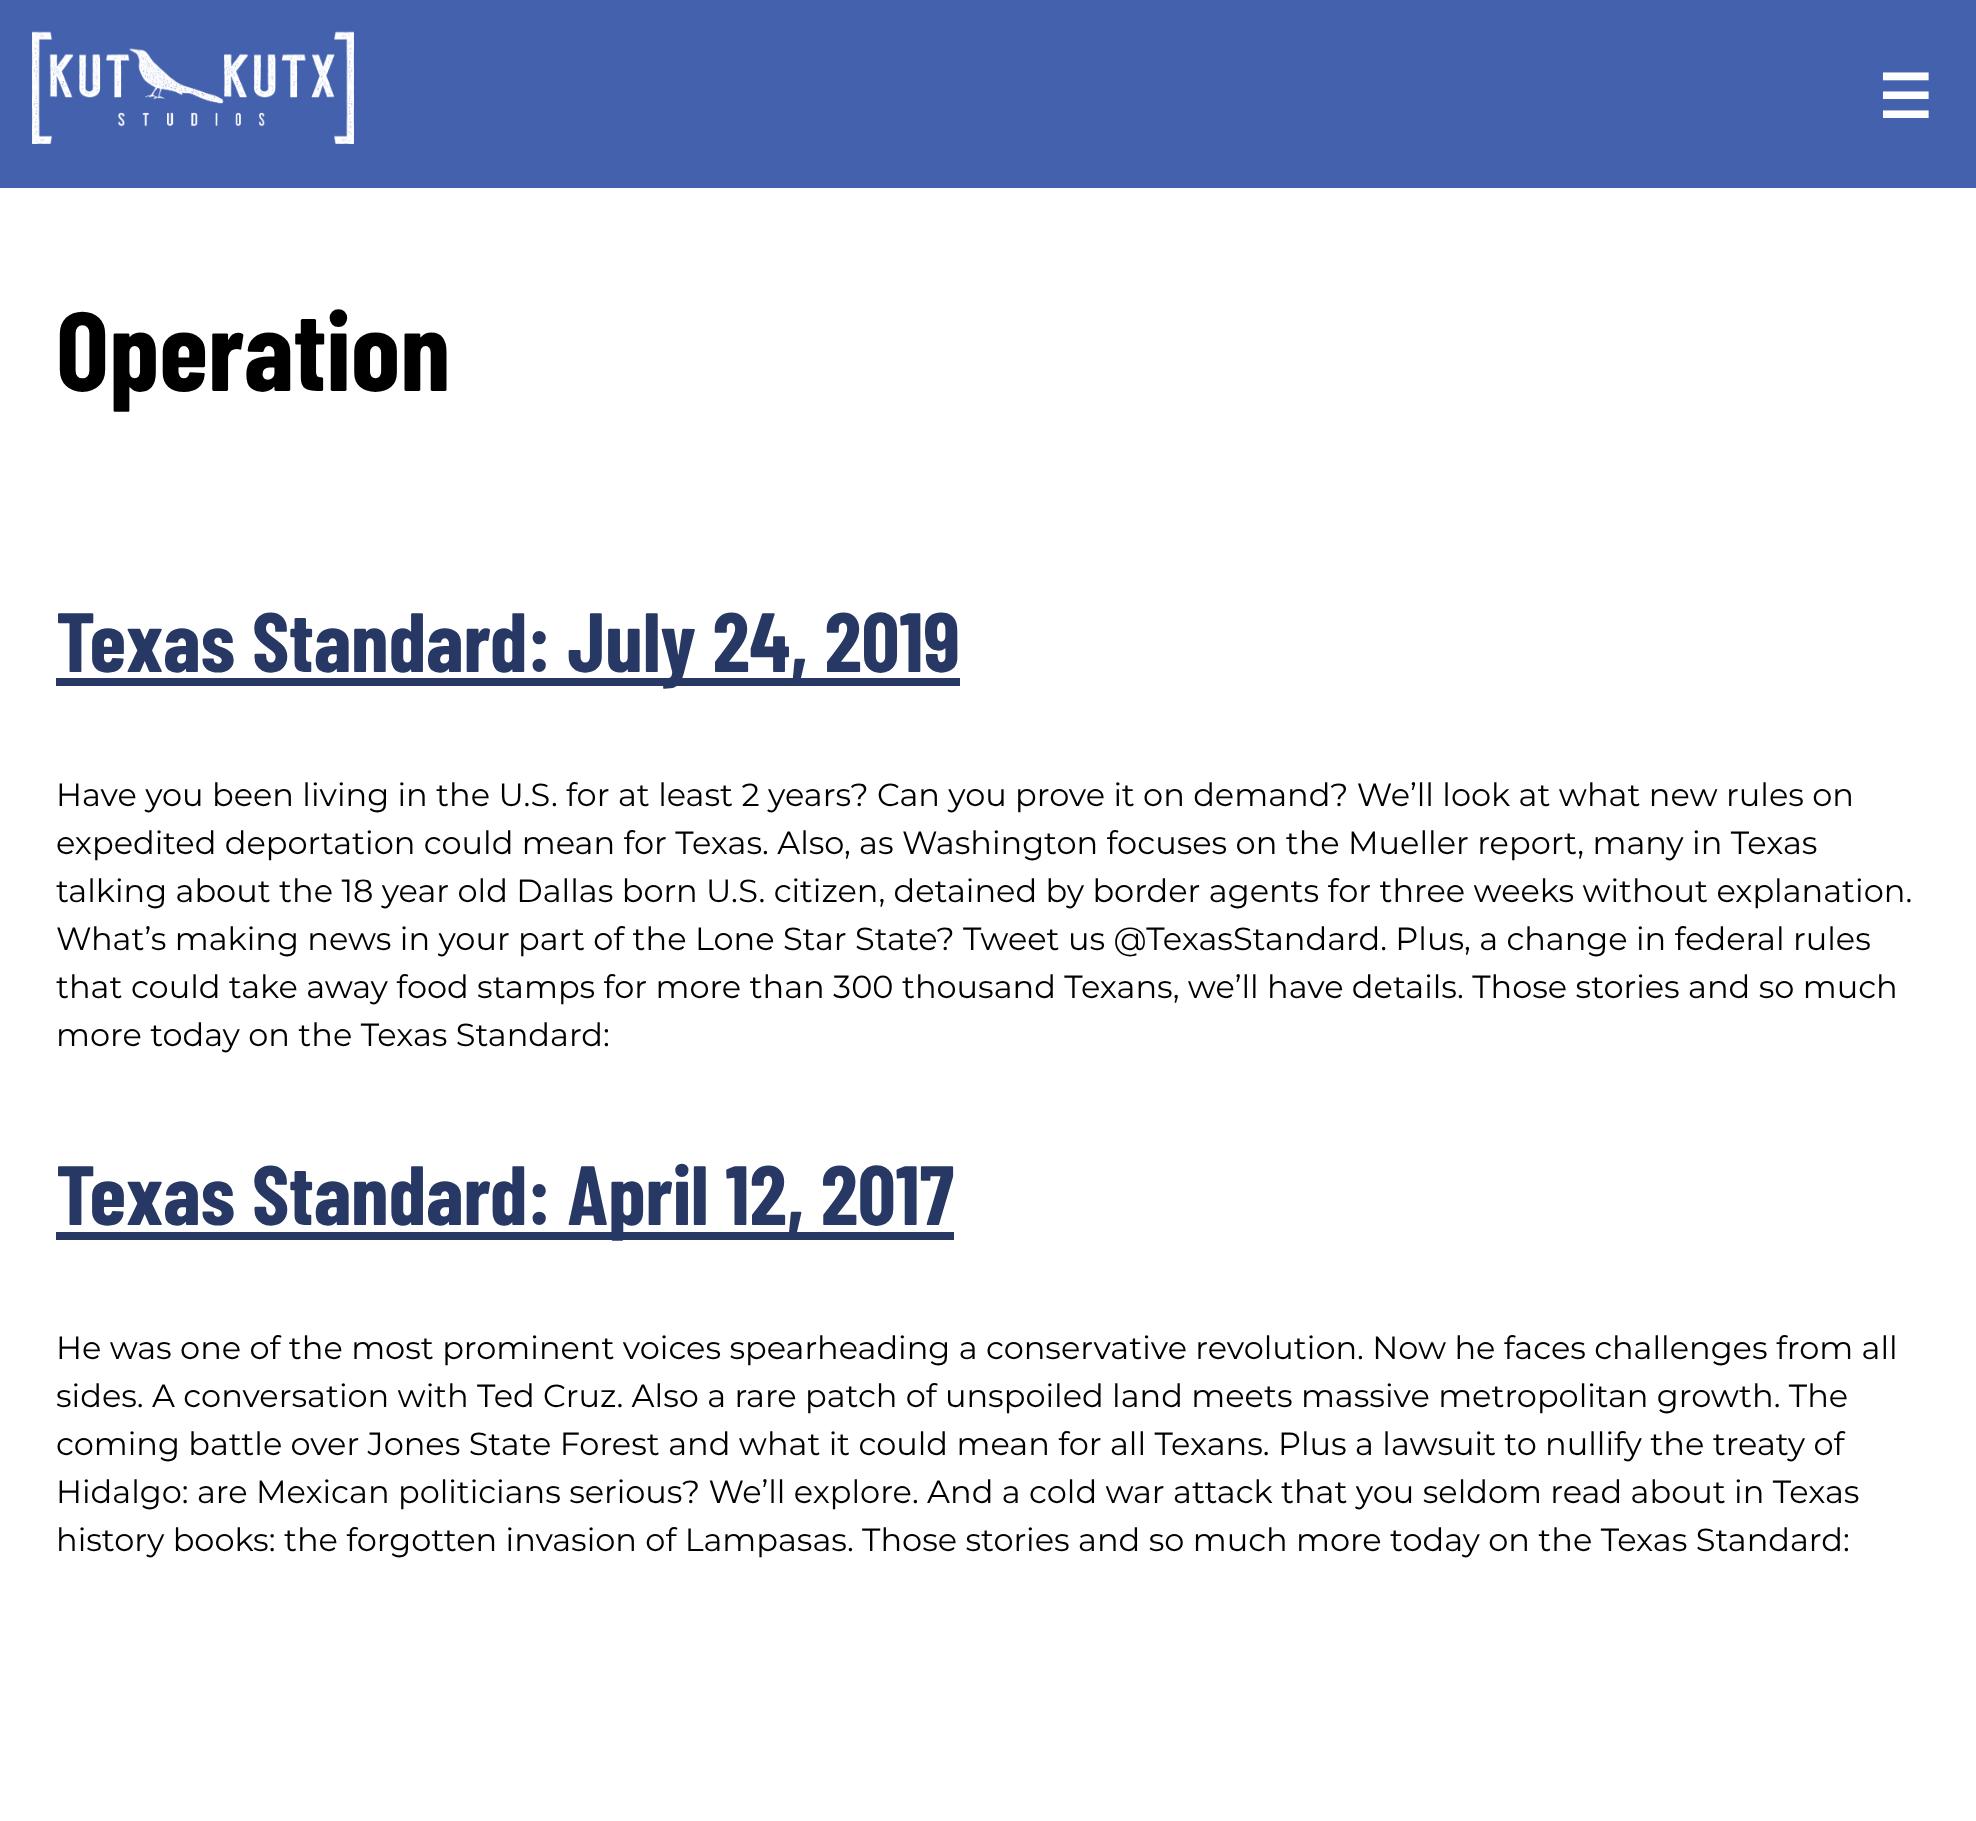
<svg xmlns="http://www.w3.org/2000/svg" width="1976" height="1821">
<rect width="100%" height="100%" fill="#fff"/>
<rect width="1976" height="188" fill="#4461ae"/>
<image x="32" y="31" width="322" height="113" href="media/1.png"/>
<text x="1878" y="118" style="font-family:DejaVu Sans;font-size:60px;font-weight:bold;letter-spacing:6px;fill:#fffefe">☰</text>
<text x="56" y="391" style="font-family:Barlow Condensed;font-size:112px;font-weight:bold;fill:#000">Operation</text>
<rect x="56" y="678" width="904" height="8" fill="#283864"/>
<text x="56" y="672" style="font-family:Barlow Condensed;font-size:84px;font-weight:bold;fill:#283864">Texas Standard: July 24, 2019</text>
<text x="56" y="806" style="font-family:Montserrat;font-size:32px;fill:#000">Have you been living in the U.S. for at least 2 years? Can you prove it on demand? We’ll look at what new rules on</text>
<text x="56" y="854" style="font-family:Montserrat;font-size:32px;fill:#000">expedited deportation could mean for Texas. Also, as Washington focuses on the Mueller report, many in Texas</text>
<text x="56" y="902" style="font-family:Montserrat;font-size:32px;fill:#000">talking about the 18 year old Dallas born U.S. citizen, detained by border agents for three weeks without explanation.</text>
<text x="56" y="950" style="font-family:Montserrat;font-size:32px;fill:#000">What’s making news in your part of the Lone Star State? Tweet us @TexasStandard. Plus, a change in federal rules</text>
<text x="56" y="998" style="font-family:Montserrat;font-size:32px;fill:#000">that could take away food stamps for more than 300 thousand Texans, we’ll have details. Those stories and so much</text>
<text x="56" y="1046" style="font-family:Montserrat;font-size:32px;fill:#000">more today on the Texas Standard:</text>
<rect x="56" y="1232" width="898" height="8" fill="#283864"/>
<text x="56" y="1225" style="font-family:Barlow Condensed;font-size:84px;font-weight:bold;fill:#283864">Texas Standard: April 12, 2017</text>
<text x="56" y="1359" style="font-family:Montserrat;font-size:32px;fill:#000">He was one of the most prominent voices spearheading a conservative revolution. Now he faces challenges from all</text>
<text x="56" y="1407" style="font-family:Montserrat;font-size:32px;fill:#000">sides. A conversation with Ted Cruz. Also a rare patch of unspoiled land meets massive metropolitan growth. The</text>
<text x="56" y="1455" style="font-family:Montserrat;font-size:32px;fill:#000">coming battle over Jones State Forest and what it could mean for all Texans. Plus a lawsuit to nullify the treaty of</text>
<text x="56" y="1503" style="font-family:Montserrat;font-size:32px;fill:#000">Hidalgo: are Mexican politicians serious? We’ll explore. And a cold war attack that you seldom read about in Texas</text>
<text x="56" y="1551" style="font-family:Montserrat;font-size:32px;fill:#000">history books: the forgotten invasion of Lampasas. Those stories and so much more today on the Texas Standard:</text>
</svg>
